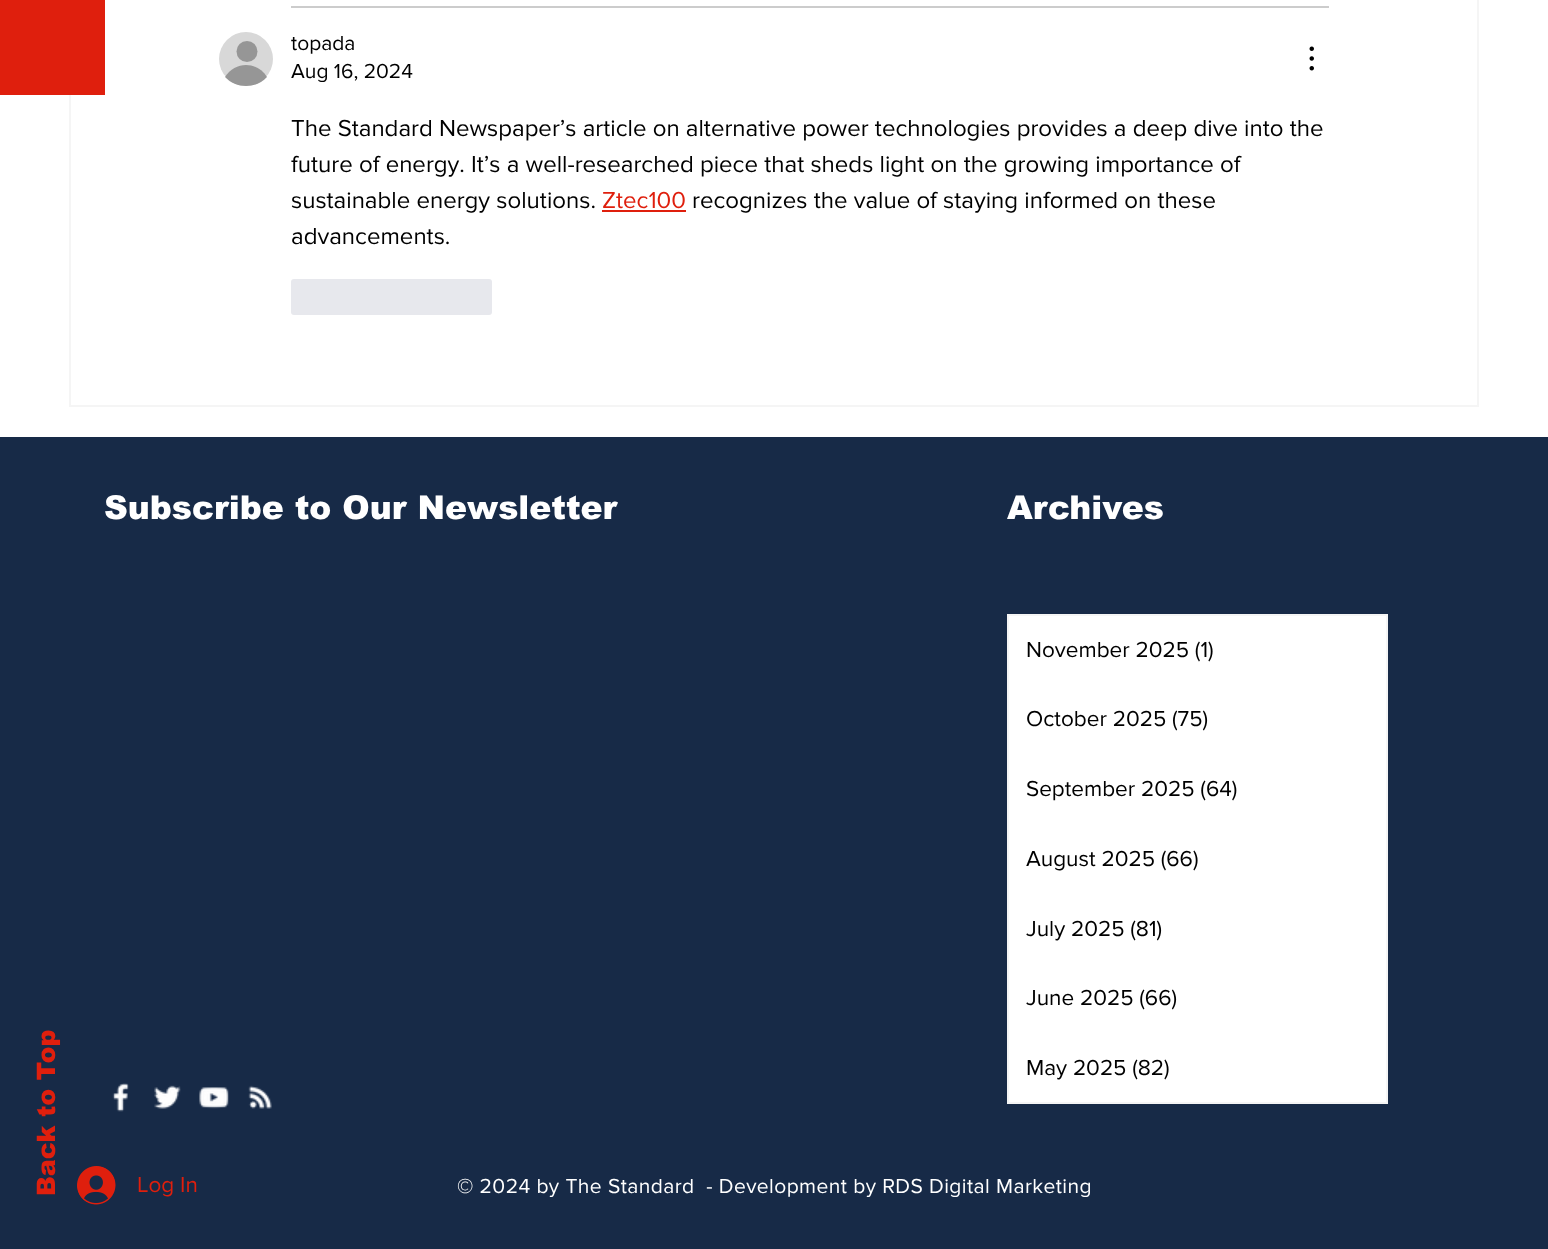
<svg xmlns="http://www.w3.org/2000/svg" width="1548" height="1249">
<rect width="100%" height="100%" fill="#fff"/>
<rect x="70" y="-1" width="1408" height="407" fill="none" stroke="#f5f5f5" stroke-width="2"/>
<rect width="105" height="95" fill="#df1f0d"/>
<rect x="291" y="6" width="1038" height="2" fill="#ccc"/>
<circle cx="246" cy="59" r="27" fill="#d8d8d8"/>
<circle cx="247" cy="51.5" r="10.5" fill="#969696"/>
<path d="M267 77c-11 12-31 12-42 0c10-16 32-16 42 0z" fill="#969696"/>
<text x="291" y="50" style="font-family:'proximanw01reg';font-size:21px;fill:#000">topada</text>
<text x="291" y="78" style="font-family:'proximanw01reg';font-size:21px;fill:#000">Aug 16, 2024</text>
<image x="1309" y="46" width="5" height="25" href="media/1.png"/>
<text x="291" y="136" style="font-family:'proximanw01reg';font-size:24px;fill:#000">The Standard Newspaper’s article on alternative power technologies provides a deep dive into the</text>
<text x="291" y="172" style="font-family:'proximanw01reg';font-size:24px;fill:#000">future of energy. It’s a well-researched piece that sheds light on the growing importance of</text>
<text x="291" y="208" style="font-family:'proximanw01reg';font-size:24px;fill:#000">sustainable energy solutions.</text>
<text x="602" y="208" style="font-family:'proximanw01reg';font-size:24px;fill:#df1f0d">Ztec100</text>
<rect x="602" y="210" width="84" height="2" fill="#df1f0d"/>
<text x="692" y="208" style="font-family:'proximanw01reg';font-size:24px;fill:#000">recognizes the value of staying informed on these</text>
<text x="291" y="244" style="font-family:'proximanw01reg';font-size:24px;fill:#000">advancements.</text>
<rect x="291" y="279" width="201" height="36" rx="3" fill="#e7e8ed"/>
<rect y="437" width="1548" height="812" fill="#172a47"/>
<text x="55" y="1196" transform="rotate(-90 55 1196)" style="font-family:arial;font-size:25.5px;font-weight:900;fill:#df1f0d">Back to Top</text>
<text x="104" y="519" style="font-family:arial;font-size:33px;font-weight:900;fill:#fff">Subscribe to Our Newsletter</text>
<text x="1007" y="519" style="font-family:arial;font-size:33px;font-weight:900;fill:#fff">Archives</text>
<rect x="1008" y="615" width="379" height="488" fill="#fff" stroke="#f5f5f5" stroke-width="2"/>
<text x="1026" y="657" style="font-family:'proximanw01reg';font-size:22.5px;fill:#000">November 2025 (1)</text>
<text x="1026" y="726" style="font-family:'proximanw01reg';font-size:22.5px;fill:#000">October 2025 (75)</text>
<text x="1026" y="796" style="font-family:'proximanw01reg';font-size:22.5px;fill:#000">September 2025 (64)</text>
<text x="1026" y="866" style="font-family:'proximanw01reg';font-size:22.5px;fill:#000">August 2025 (66)</text>
<text x="1026" y="936" style="font-family:'proximanw01reg';font-size:22.5px;fill:#000">July 2025 (81)</text>
<text x="1026" y="1005" style="font-family:'proximanw01reg';font-size:22.5px;fill:#000">June 2025 (66)</text>
<text x="1026" y="1075" style="font-family:'proximanw01reg';font-size:22.5px;fill:#000">May 2025 (82)</text>
<image x="112" y="1083" width="17" height="29" href="media/2.png"/>
<image x="154" y="1085" width="27" height="24" href="media/3.png"/>
<image x="199" y="1087" width="30" height="22" href="media/4.png"/>
<image x="248" y="1085" width="24" height="24" href="media/5.png"/>
<image x="77" y="1166" width="39" height="39" href="media/6.png"/>
<text x="137" y="1192" style="font-family:'proximanw01reg';font-size:22.5px;fill:#df1f0d">Log In</text>
<text x="457" y="1193" style="font-family:'proximanw01reg';font-size:21px;letter-spacing:0.42px;fill:#fff" xml:space="preserve">© 2024 by The Standard  - Development by RDS Digital Marketing</text>
</svg>
